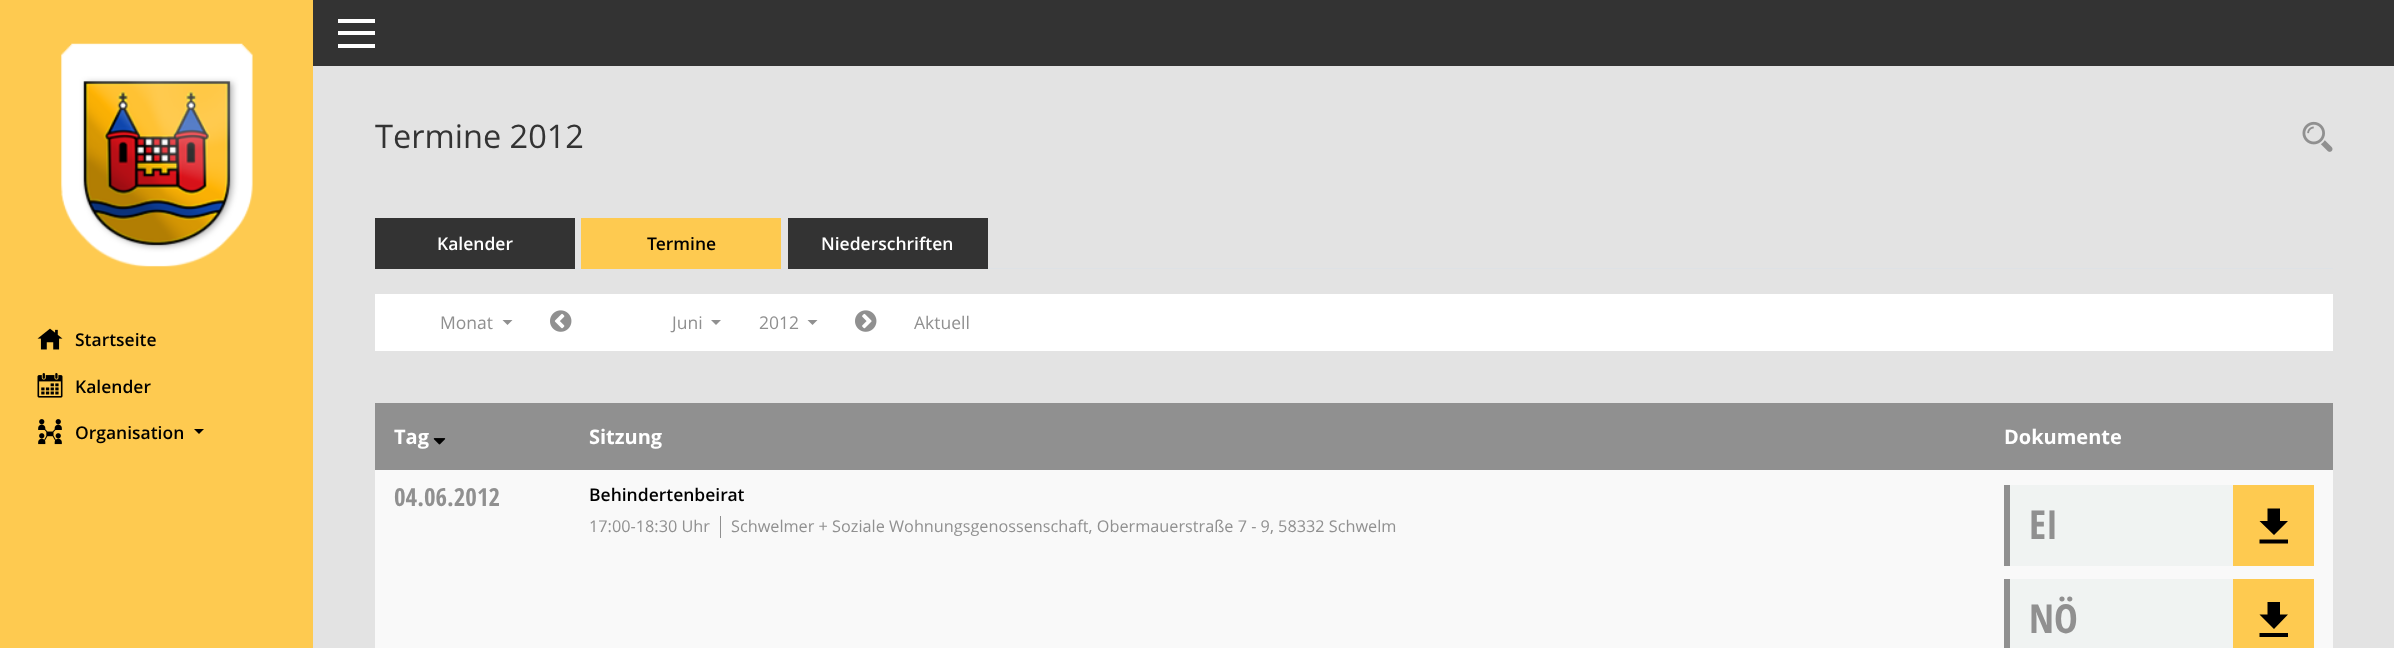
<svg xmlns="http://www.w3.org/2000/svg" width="2394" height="648">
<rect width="100%" height="100%" fill="#e3e3e3"/>
<rect width="313" height="648" fill="#feca50"/>
<image x="61" y="43" width="192" height="224" href="media/1.png"/>
<image x="37" y="328" width="26" height="22" href="media/2.png"/>
<text x="75" y="346" style="font-family:Open Sans;font-size:17.5px;font-weight:600;fill:#000">Startseite</text>
<image x="37" y="373" width="26" height="25" href="media/3.png"/>
<text x="75" y="393" style="font-family:Open Sans;font-size:17.5px;font-weight:600;fill:#000">Kalender</text>
<image x="38" y="419" width="24" height="26" href="media/4.png"/>
<text x="75" y="439" style="font-family:Open Sans;font-size:17.5px;font-weight:600;fill:#000">Organisation</text>
<path d="M194 429h10l-5 5z" fill="#000"/>
<rect x="313" width="2081" height="66" fill="#333"/>
<rect x="338" y="19" width="37" height="4" fill="#fff"/>
<rect x="338" y="31" width="37" height="4" fill="#fff"/>
<rect x="338" y="44" width="37" height="4" fill="#fff"/>
<text x="375" y="148" style="font-family:Open Sans;font-size:32.5px;fill:#333">Termine 2012</text>
<image x="2302" y="121" width="31" height="31" href="media/5.png"/>
<rect x="575" y="268" width="1758" height="1" fill="#dee2e6"/>
<rect x="375" y="218" width="200" height="51" fill="#333"/>
<text x="437" y="250" style="font-family:Open Sans;font-size:17.5px;font-weight:600;fill:#fff">Kalender</text>
<rect x="581" y="218" width="200" height="51" fill="#feca50"/>
<text x="647" y="250" style="font-family:Open Sans;font-size:17.5px;font-weight:600;fill:#000">Termine</text>
<rect x="788" y="218" width="200" height="51" fill="#333"/>
<text x="821" y="250" style="font-family:Open Sans;font-size:17.5px;font-weight:600;fill:#fff">Niederschriften</text>
<rect x="375" y="294" width="1958" height="57" fill="#fff"/>
<text x="440" y="329" style="font-family:Open Sans;font-size:17.5px;fill:#909090">Monat</text>
<path d="M502.5 320h10l-5 5z" fill="#909090"/>
<image x="550" y="310" width="22" height="22" href="media/6.png"/>
<text x="672" y="329" style="font-family:Open Sans;font-size:17.5px;fill:#909090">Juni</text>
<path d="M711 320h10l-5 5z" fill="#909090"/>
<text x="759" y="329" style="font-family:Open Sans;font-size:17.5px;fill:#909090">2012</text>
<path d="M807.5 320h10l-5 5z" fill="#909090"/>
<image x="855" y="310" width="22" height="22" href="media/7.png"/>
<text x="914" y="329" style="font-family:Open Sans;font-size:17.5px;fill:#909090">Aktuell</text>
<rect x="375" y="403" width="1958" height="67" fill="#909090"/>
<text x="394" y="444" style="font-family:Open Sans;font-size:20px;font-weight:bold;fill:#fff">Tag</text>
<image x="433" y="438" width="13" height="7" href="media/8.png"/>
<text x="589" y="444" style="font-family:Open Sans;font-size:20px;font-weight:bold;fill:#fff">Sitzung</text>
<text x="2004" y="444" style="font-family:Open Sans;font-size:20px;font-weight:bold;fill:#fff">Dokumente</text>
<rect x="375" y="470" width="1958" height="178" fill="#f9f9f9"/>
<text x="394" y="506" style="font-family:Open Sans Condensed;font-size:25px;font-weight:bold;fill:#909090">04.06.2012</text>
<text x="589" y="501" style="font-family:Open Sans;font-size:17.5px;font-weight:600;fill:#000">Behindertenbeirat</text>
<text x="589" y="532" style="font-family:Open Sans;font-size:16.25px;fill:#909090">17:00-18:30 Uhr</text>
<rect x="720" y="516" width="1" height="22" fill="#909090"/>
<text x="731" y="532" style="font-family:Open Sans;font-size:16.25px;fill:#909090">Schwelmer + Soziale Wohnungsgenossenschaft, Obermauerstraße 7 - 9, 58332 Schwelm</text>
<rect x="2010" y="485" width="223" height="81" fill="#f0f3f2"/>
<rect x="2004" y="485" width="6" height="81" fill="#909090"/>
<text x="2029" y="539" style="font-family:Open Sans Condensed;font-size:40px;font-weight:bold;fill:#909090">EI</text>
<rect x="2233" y="485" width="81" height="81" fill="#feca50"/>
<path d="M2288 521h-8v-12.5h-12.5v12.5h-8l14.5 14zm-28.5 18.5v4h28.5v-4z" fill="#000"/>
<rect x="2010" y="579" width="223" height="69" fill="#f0f3f2"/>
<rect x="2004" y="579" width="6" height="69" fill="#909090"/>
<text x="2029" y="633" style="font-family:Open Sans Condensed;font-size:40px;font-weight:bold;fill:#909090">NÖ</text>
<rect x="2233" y="579" width="81" height="69" fill="#feca50"/>
<path d="M2288 614.5h-8v-12.5h-12.5v12.5h-8l14.5 14.5zm-28.5 18.5v4h28.5v-4z" fill="#000"/>
</svg>
